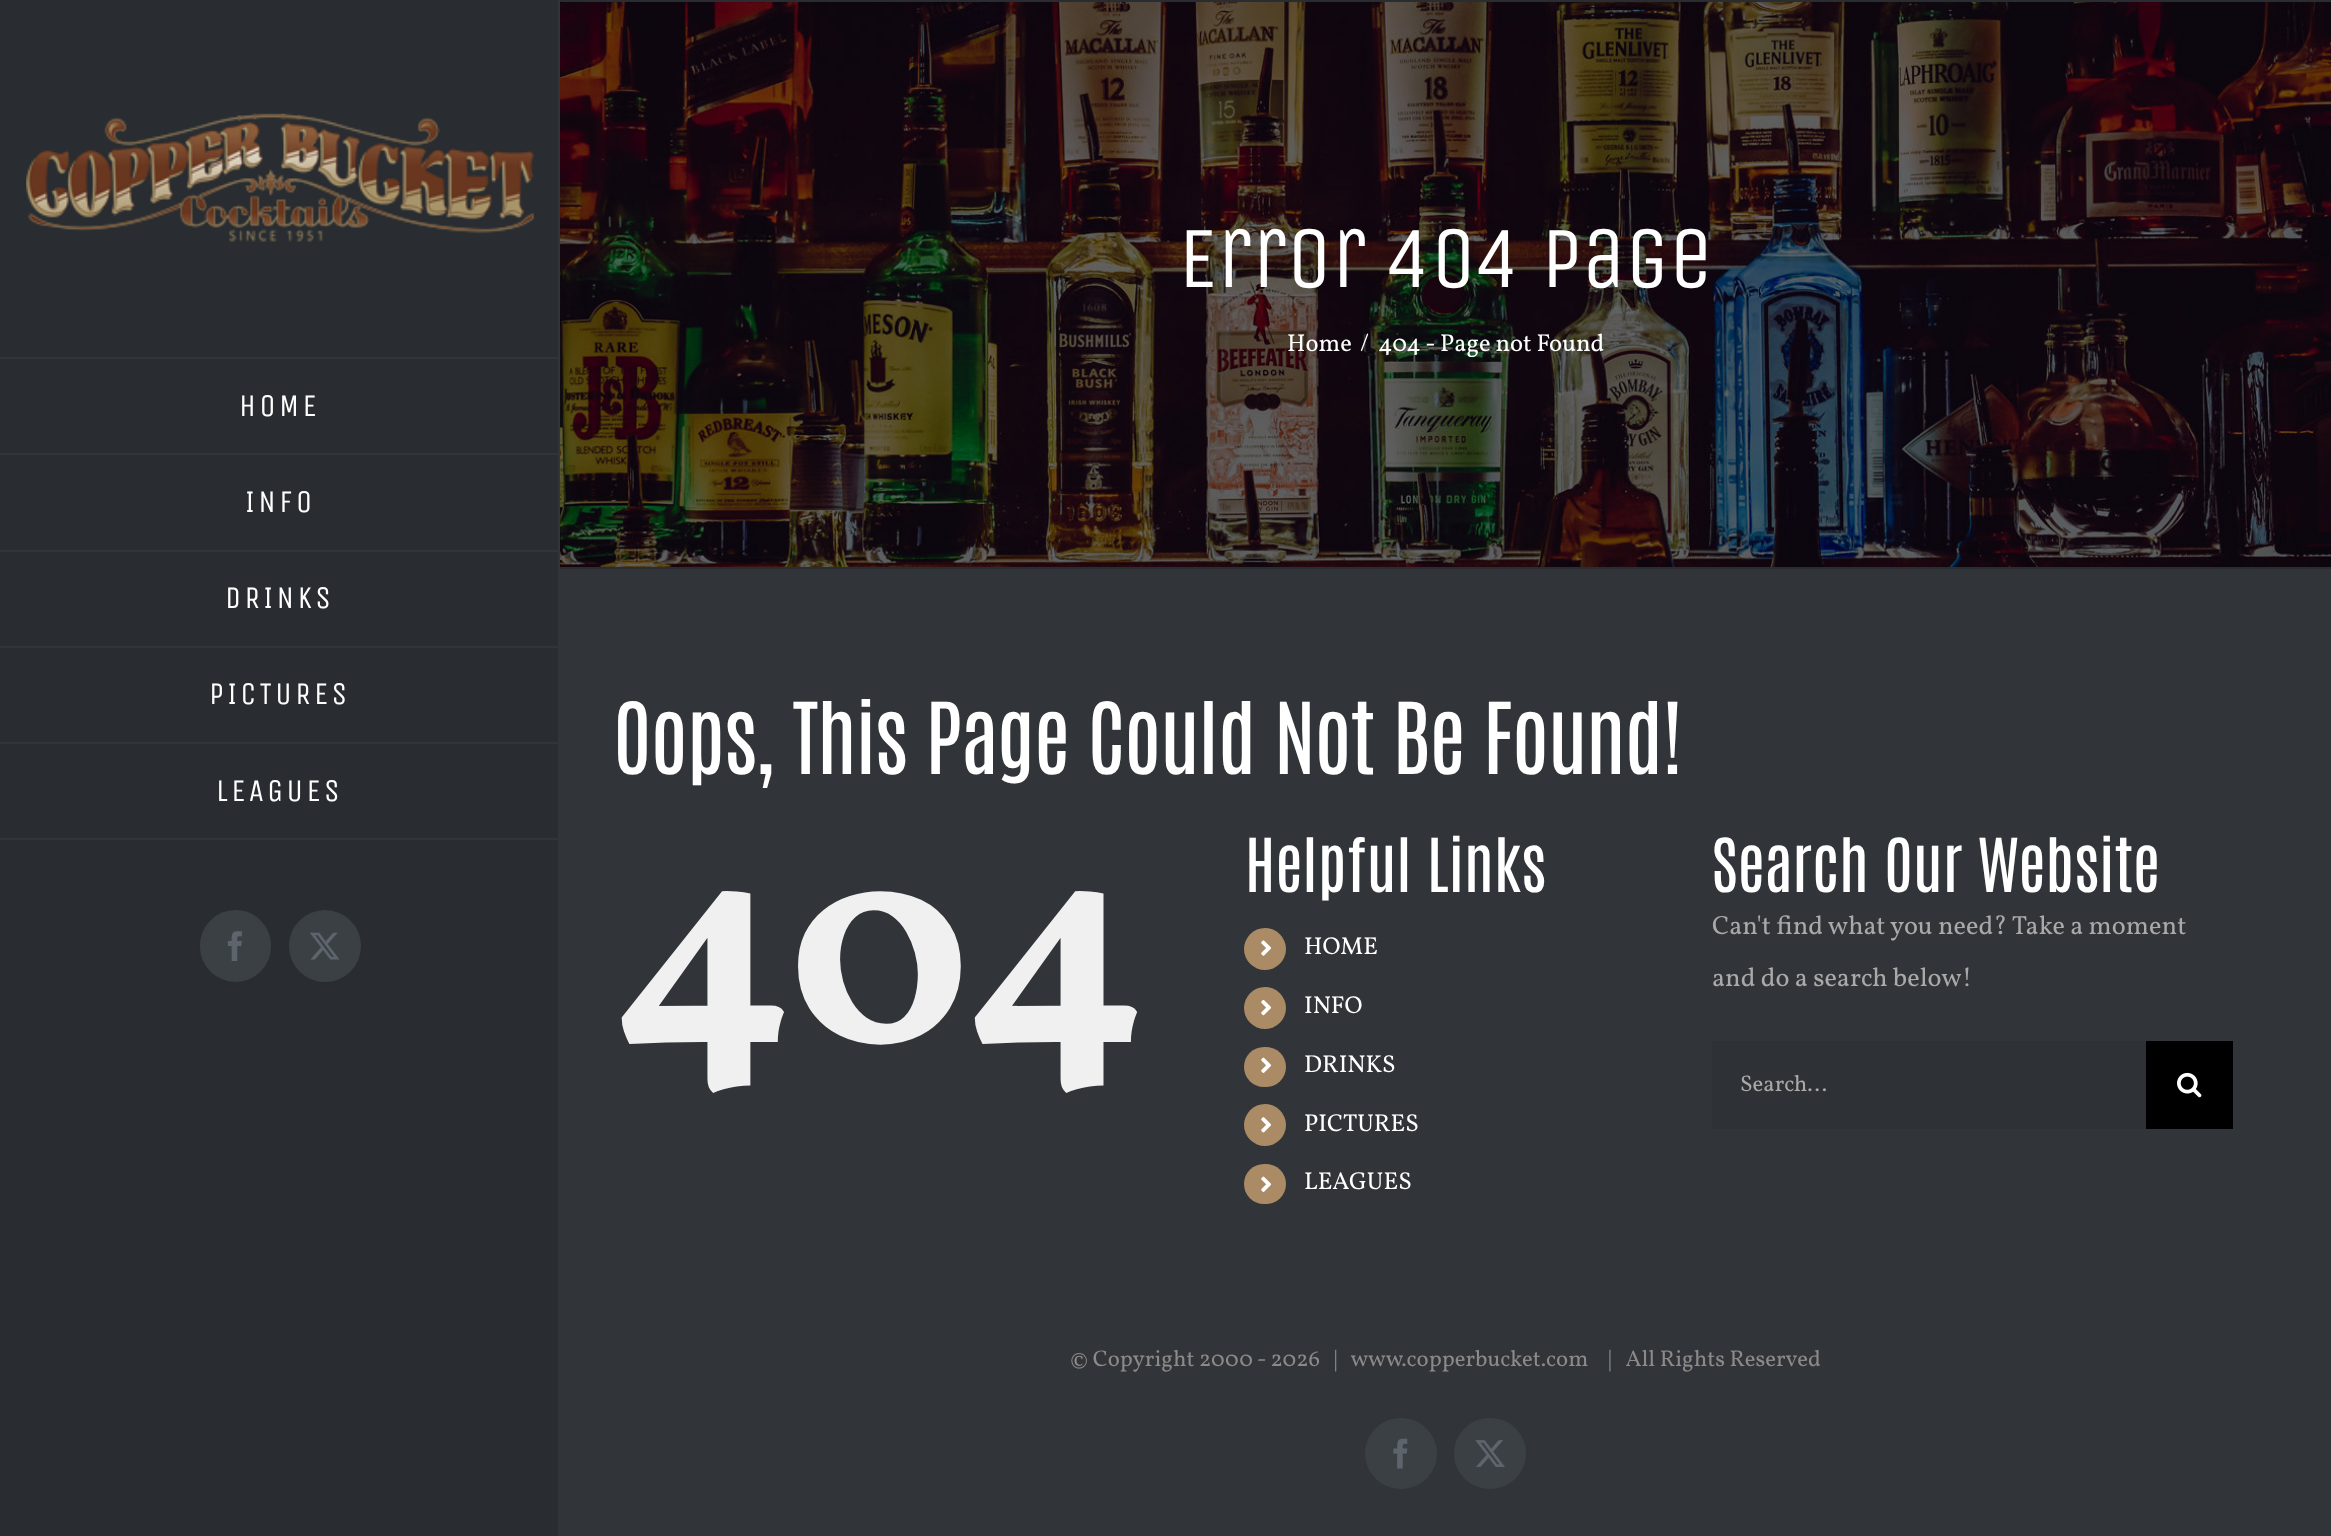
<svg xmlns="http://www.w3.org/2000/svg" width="2331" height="1536">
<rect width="100%" height="100%" fill="#313539"/>
<image x="560" y="2" width="1771" height="565" href="media/1.png"/>
<rect x="560" width="1771" height="2" fill="#292c30"/>
<rect x="560" y="567" width="1771" height="2" fill="#292c30"/>
<text x="1178" y="287" style="font-family:Unica One;font-size:87.5px;fill:#fff">Error 404 Page</text>
<text x="1287" y="351" style="font-family:Vollkorn;font-size:24.5px;fill:#fff">Home</text>
<text x="1360" y="351" style="font-family:Vollkorn;font-size:24.5px;fill:#fff">/</text>
<text x="1378" y="351" style="font-family:Vollkorn;font-size:24.5px;fill:#fff">404 - Page not Found</text>
<rect width="558" height="1536" fill="#292c30"/>
<image x="26" y="113" width="508" height="129" href="media/2.png"/>
<rect y="357" width="560" height="2" fill="#313539"/>
<rect y="453" width="560" height="2" fill="#313539"/>
<text x="239" y="416" style="font-family:Unica One;font-size:31.5px;letter-spacing:3.5px;fill:#fff">HOME</text>
<rect y="550" width="560" height="2" fill="#313539"/>
<text x="245" y="512" style="font-family:Unica One;font-size:31.5px;letter-spacing:3.5px;fill:#fff">INFO</text>
<rect y="646" width="560" height="2" fill="#313539"/>
<text x="225" y="608" style="font-family:Unica One;font-size:31.5px;letter-spacing:3.5px;fill:#fff">DRINKS</text>
<rect y="742" width="560" height="2" fill="#313539"/>
<text x="209" y="704" style="font-family:Unica One;font-size:31.5px;letter-spacing:3.5px;fill:#fff">PICTURES</text>
<rect y="838" width="560" height="2" fill="#313539"/>
<text x="216" y="801" style="font-family:Unica One;font-size:31.5px;letter-spacing:3.5px;fill:#fff">LEAGUES</text>
<rect x="201" y="911" width="69" height="70" rx="34.5" fill="#3b4045" stroke="#3b4045" stroke-width="2"/>
<image x="228" y="931" width="14" height="30" href="media/3.png"/>
<circle cx="325" cy="946" r="35" fill="#3b4045" stroke="#3b4045" stroke-width="2"/>
<image x="310" y="932" width="30" height="28" href="media/4.png"/>
<text x="613" y="774" style="font-family:Antonio;font-size:84px;letter-spacing:-1.25px;fill:#fff">Oops, This Page Could Not Be Found!</text>
<text x="613" y="1042" style="font-family:Vollkorn;font-size:298px;font-weight:bold;fill:#f0f0f0">404</text>
<text x="1245" y="892" style="font-family:Antonio;font-size:63px;fill:#fff">Helpful Links</text>
<circle cx="1265" cy="949" r="21" fill="#ab8b65"/>
<image x="1261" y="940" width="10" height="16" href="media/5.png"/>
<text x="1304" y="954" style="font-family:Vollkorn;font-size:24.5px;fill:#fff">HOME</text>
<circle cx="1265" cy="1008" r="21" fill="#ab8b65"/>
<image x="1261" y="999" width="10" height="17" href="media/6.png"/>
<text x="1304" y="1013" style="font-family:Vollkorn;font-size:24.5px;fill:#fff">INFO</text>
<rect x="1244" y="1047" width="42" height="40" rx="20" fill="#ab8b65"/>
<image x="1261" y="1057" width="10" height="16" href="media/7.png"/>
<text x="1304" y="1072" style="font-family:Vollkorn;font-size:24.5px;fill:#fff">DRINKS</text>
<circle cx="1265" cy="1125" r="21" fill="#ab8b65"/>
<image x="1261" y="1117" width="10" height="16" href="media/8.png"/>
<text x="1304" y="1131" style="font-family:Vollkorn;font-size:24.5px;fill:#fff">PICTURES</text>
<rect x="1244" y="1164" width="42" height="40" rx="20" fill="#ab8b65"/>
<image x="1261" y="1176" width="10" height="16" href="media/7.png"/>
<text x="1304" y="1189" style="font-family:Vollkorn;font-size:24.5px;fill:#fff">LEAGUES</text>
<text x="1712" y="892" style="font-family:Antonio;font-size:63px;fill:#fff">Search Our Website</text>
<text x="1712" y="934" style="font-family:Vollkorn;font-size:26.25px;fill:#aaa9a9">Can't find what you need? Take a moment</text>
<text x="1712" y="986" style="font-family:Vollkorn;font-size:26.25px;fill:#aaa9a9">and do a search below!</text>
<rect x="1712" y="1041" width="434" height="88" fill="#2e3135"/>
<text x="1740" y="1091" style="font-family:Vollkorn;font-size:22.75px;fill:#aaa9a9">Search...</text>
<rect x="2146" y="1041" width="87" height="88" fill="#000"/>
<image x="2177" y="1072" width="25" height="26" href="media/9.png"/>
<text x="1070" y="1366" style="font-family:Vollkorn;font-size:22.75px;fill:#8c8989" xml:space="preserve">© Copyright 2000 - 2026   |   www.copperbucket.com</text>
<text x="1608" y="1366" style="font-family:Vollkorn;font-size:22.75px;fill:#8c8989" xml:space="preserve">|   All Rights Reserved</text>
<rect x="1366" y="1419" width="70" height="69" rx="34.5" fill="#3b4045" stroke="#3b4045" stroke-width="2"/>
<image x="1393" y="1438" width="15" height="31" href="media/10.png"/>
<rect x="1455" y="1419" width="70" height="69" rx="34.5" fill="#3b4045" stroke="#3b4045" stroke-width="2"/>
<image x="1475" y="1440" width="30" height="27" href="media/11.png"/>
</svg>
